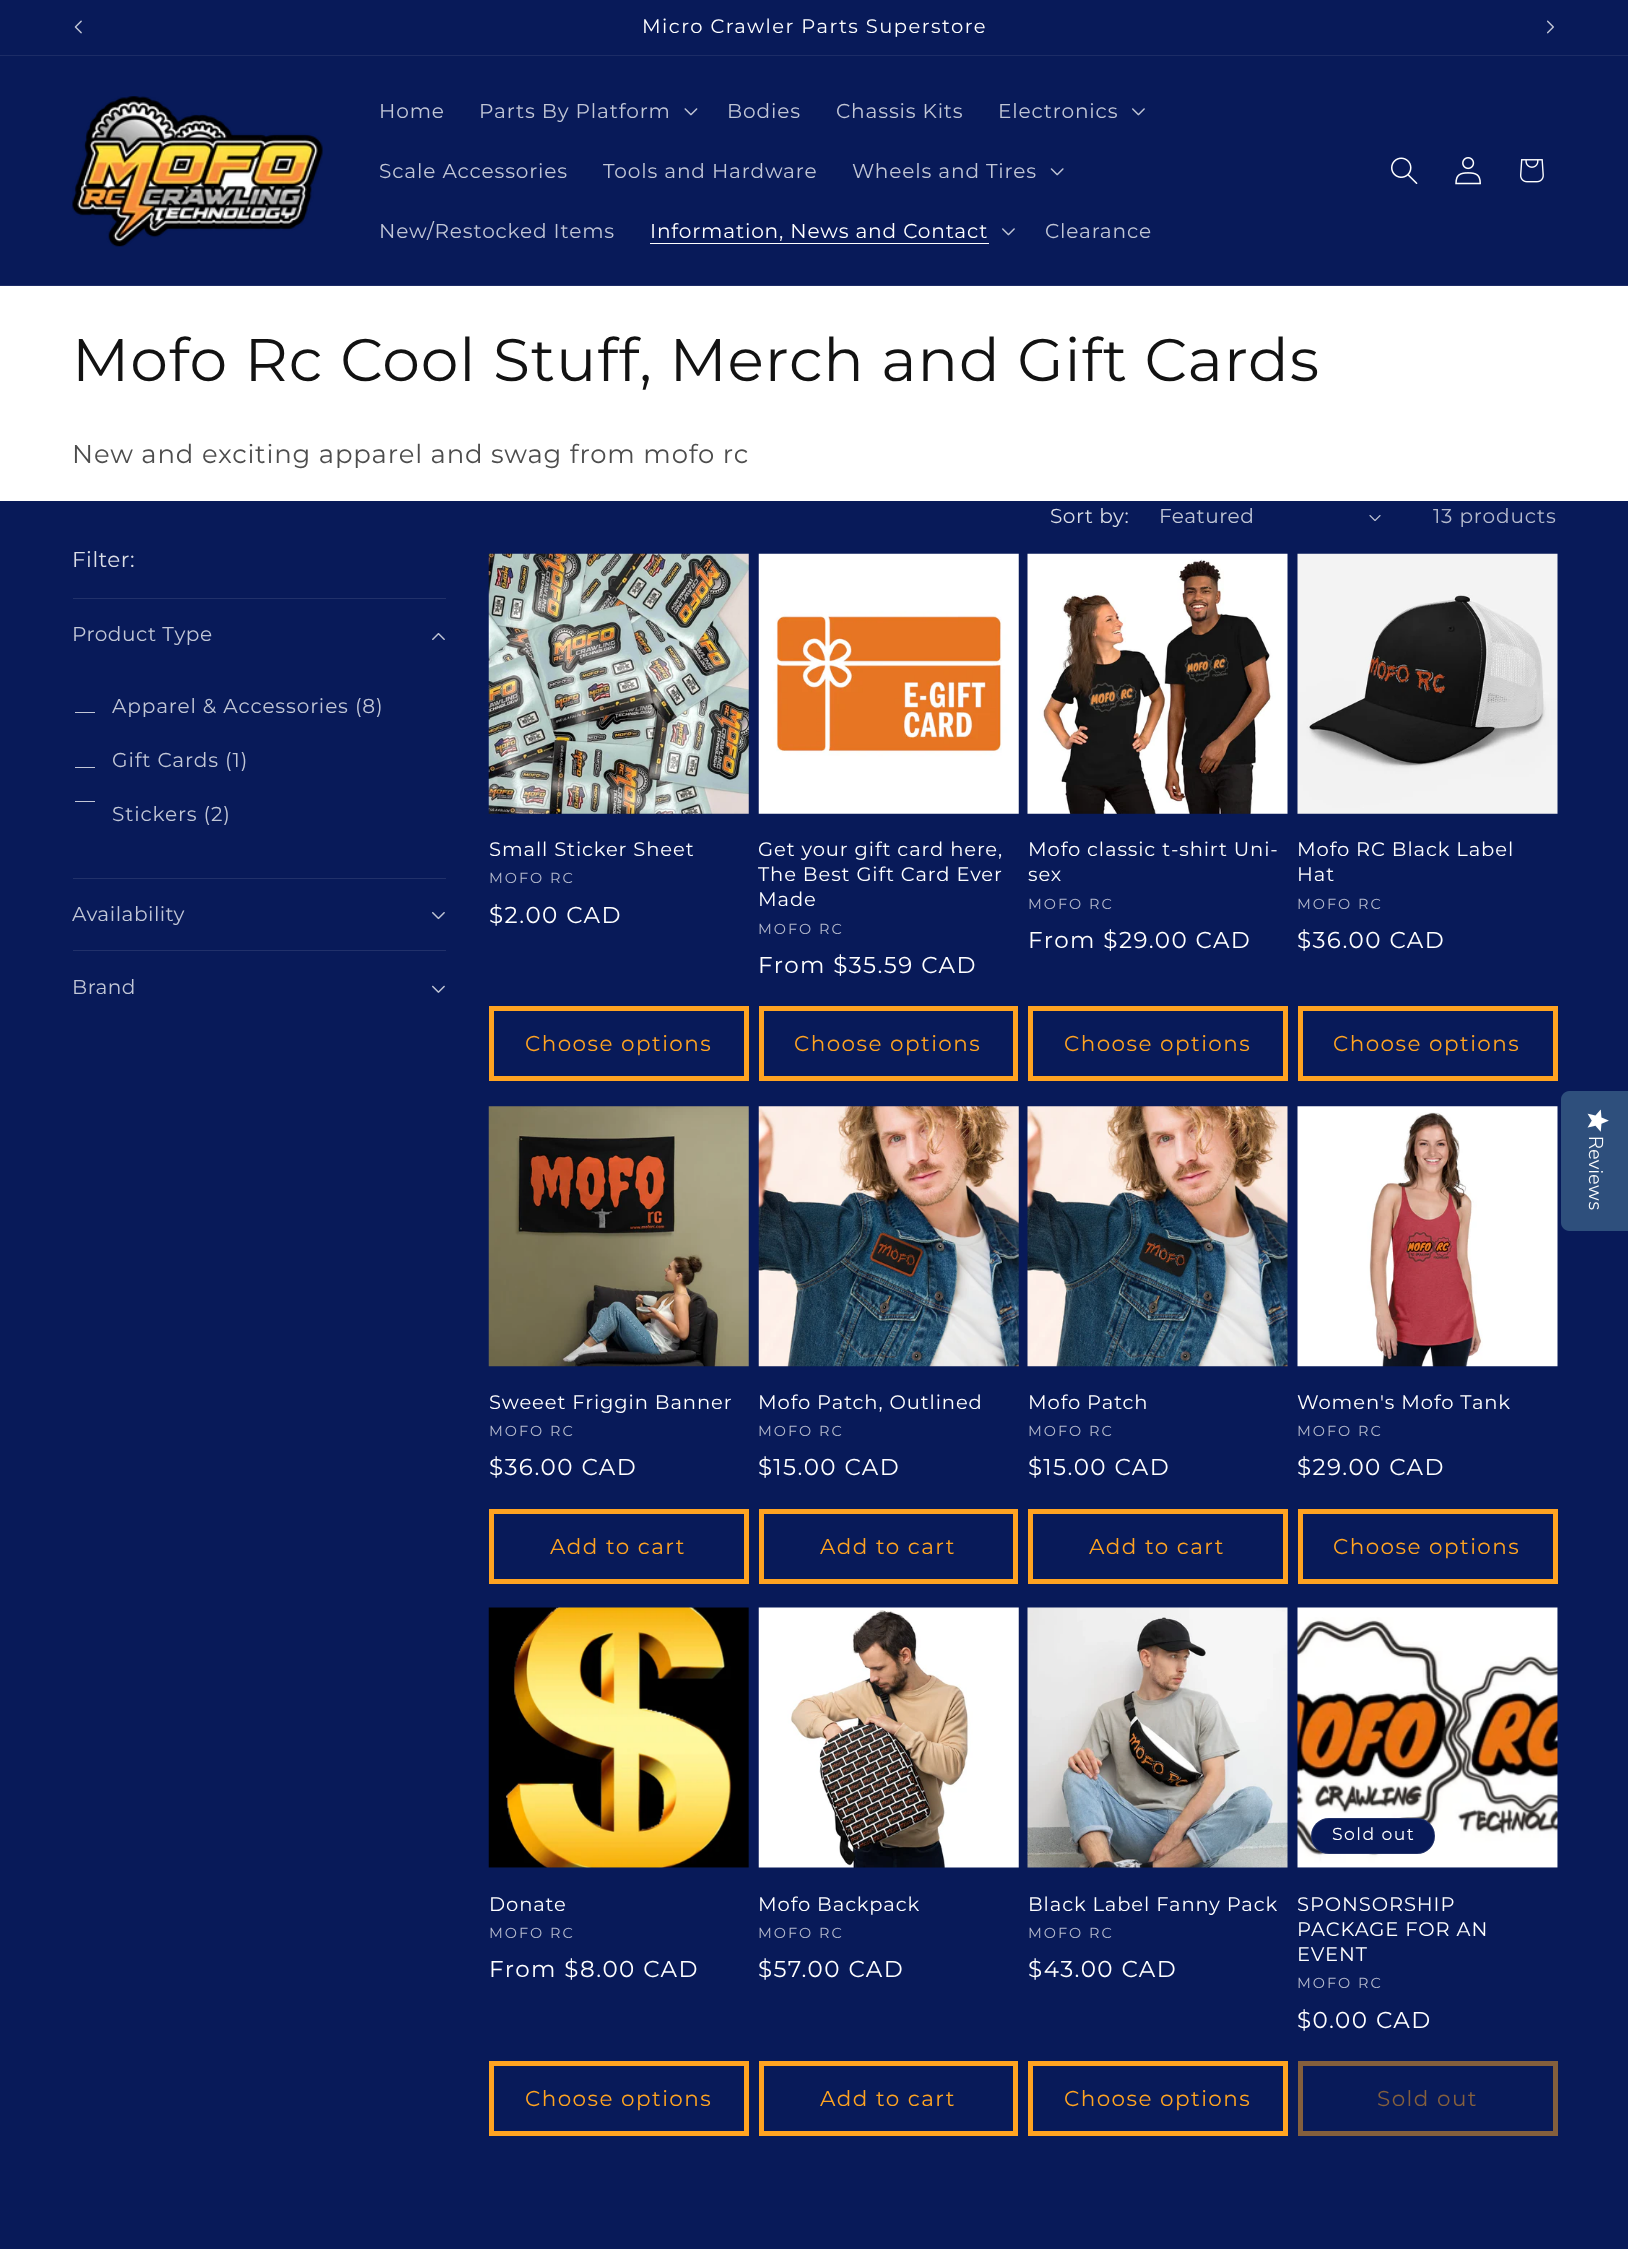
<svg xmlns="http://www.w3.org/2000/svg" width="1628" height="2249">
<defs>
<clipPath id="clip1"><rect x="75" y="693" width="20" height="20"/></clipPath>
<clipPath id="clip2"><rect x="75" y="748" width="20" height="20"/></clipPath>
<clipPath id="clip3"><rect x="75" y="801" width="20" height="20"/></clipPath>
</defs>
<rect width="100%" height="100%" fill="#fff"/>
<rect width="1628" height="55" fill="#081a59"/>
<rect y="55" width="1628" height="1" fill="#1c2c66"/>
<image x="74" y="20" width="8" height="14" href="media/1.png"/>
<text x="642" y="33" style="font-family:Montserrat;font-size:19.5px;letter-spacing:1.45px;fill:#fff">Micro Crawler Parts Superstore</text>
<image x="1547" y="20" width="7" height="14" href="media/2.png"/>
<rect y="56" width="1628" height="229" fill="#081a59"/>
<rect y="285" width="1628" height="1" fill="#1c2c66"/>
<image x="72" y="96" width="251" height="151" href="media/3.png"/>
<text x="379" y="118" style="font-family:Montserrat;font-size:20.1px;letter-spacing:0.85px;fill:#c1c6d6">Home</text>
<text x="479" y="118" style="font-family:Montserrat;font-size:20.1px;letter-spacing:0.85px;fill:#c1c6d6">Parts By Platform</text>
<image x="684" y="108" width="14" height="8" href="media/4.png"/>
<text x="727" y="118" style="font-family:Montserrat;font-size:20.1px;letter-spacing:0.85px;fill:#c1c6d6">Bodies</text>
<text x="836" y="118" style="font-family:Montserrat;font-size:20.1px;letter-spacing:0.85px;fill:#c1c6d6">Chassis Kits</text>
<text x="998" y="118" style="font-family:Montserrat;font-size:20.1px;letter-spacing:0.85px;fill:#c1c6d6">Electronics</text>
<image x="1132" y="108" width="13" height="8" href="media/5.png"/>
<text x="379" y="178" style="font-family:Montserrat;font-size:20.1px;letter-spacing:0.85px;fill:#c1c6d6">Scale Accessories</text>
<text x="603" y="178" style="font-family:Montserrat;font-size:20.1px;letter-spacing:0.85px;fill:#c1c6d6">Tools and Hardware</text>
<text x="852" y="178" style="font-family:Montserrat;font-size:20.1px;letter-spacing:0.85px;fill:#c1c6d6">Wheels and Tires</text>
<image x="1050" y="168" width="14" height="8" href="media/6.png"/>
<text x="379" y="238" style="font-family:Montserrat;font-size:20.1px;letter-spacing:0.85px;fill:#c1c6d6">New/Restocked Items</text>
<text x="650" y="238" style="font-family:Montserrat;font-size:20.1px;letter-spacing:0.85px;fill:#fff">Information, News and Contact</text>
<rect x="650" y="243" width="339" height="1" fill="#fff"/>
<image x="1002" y="228" width="13" height="8" href="media/5.png"/>
<text x="1045" y="238" style="font-family:Montserrat;font-size:20.1px;letter-spacing:0.85px;fill:#c1c6d6">Clearance</text>
<image x="1391" y="157" width="27" height="27" href="media/7.png"/>
<image x="1455" y="157" width="26" height="28" href="media/8.png"/>
<image x="1520" y="159" width="24" height="24" href="media/9.png"/>
<text x="72" y="381" style="font-family:Montserrat;font-size:60px;letter-spacing:0.9px;fill:#121212">Mofo Rc Cool Stuff, Merch and Gift Cards</text>
<text x="72" y="463" style="font-family:Montserrat;font-size:25.9px;letter-spacing:0.85px;fill:#4d4d4d">New and exciting apparel and swag from mofo rc</text>
<rect y="501" width="1628" height="1748" fill="#081a59"/>
<text x="1050" y="523" style="font-family:Montserrat;font-size:20.1px;letter-spacing:0.5px;fill:#dadde6">Sort by:</text>
<text x="1159" y="523" style="font-family:Montserrat;font-size:20.1px;letter-spacing:0.5px;fill:#c1c6d6">Featured</text>
<image x="1369" y="515" width="12" height="6" href="media/10.png"/>
<text x="1433" y="523" style="font-family:Montserrat;font-size:20.1px;letter-spacing:0.85px;fill:#b5bacd">13 products</text>
<text x="72" y="567" style="font-family:Montserrat;font-size:21.5px;letter-spacing:0.5px;fill:#dadde6">Filter:</text>
<rect x="73" y="598" width="373" height="1" fill="#21316a"/>
<text x="72" y="641" style="font-family:Montserrat;font-size:20.1px;letter-spacing:0.5px;fill:#c1c6d6">Product Type</text>
<image x="432" y="633" width="13" height="7" href="media/11.png"/>
<g clip-path="url(#clip1)">
<rect x="74.5" y="692.5" width="21" height="20" fill="none" stroke="#c1c6d6"/>
</g>
<text x="112" y="713" style="font-family:Montserrat;font-size:20.1px;letter-spacing:0.85px;fill:#c1c6d6">Apparel &amp; Accessories (8)</text>
<g clip-path="url(#clip2)">
<rect x="74.5" y="747.5" width="21" height="20" fill="none" stroke="#c1c6d6"/>
</g>
<text x="112" y="767" style="font-family:Montserrat;font-size:20.1px;letter-spacing:0.85px;fill:#c1c6d6">Gift Cards (1)</text>
<g clip-path="url(#clip3)">
<rect x="74.5" y="801.5" width="21" height="20" fill="none" stroke="#c1c6d6"/>
</g>
<text x="112" y="821" style="font-family:Montserrat;font-size:20.1px;letter-spacing:0.85px;fill:#c1c6d6">Stickers (2)</text>
<rect x="73" y="878" width="373" height="1" fill="#21316a"/>
<text x="72" y="921" style="font-family:Montserrat;font-size:20.1px;letter-spacing:0.5px;fill:#c1c6d6">Availability</text>
<image x="432" y="912" width="13" height="8" href="media/12.png"/>
<rect x="73" y="950" width="373" height="1" fill="#21316a"/>
<text x="72" y="994" style="font-family:Montserrat;font-size:20.1px;letter-spacing:0.5px;fill:#c1c6d6">Brand</text>
<image x="432" y="985" width="13" height="8" href="media/13.png"/>
<image x="488" y="553" width="261" height="261" href="media/14.png"/>
<text x="489" y="856" style="font-family:Montserrat;font-size:19.5px;letter-spacing:0.9px;fill:#fff">Small Sticker Sheet</text>
<text x="489" y="883" style="font-family:Montserrat;font-size:14.5px;letter-spacing:2px;fill:#b5bacd">MOFO RC</text>
<text x="489" y="923" style="font-family:Montserrat;font-size:23px;letter-spacing:1.45px;fill:#fff">$2.00 CAD</text>
<rect x="491.5" y="1008.5" width="255" height="70" fill="none" stroke="#ffa321" stroke-width="5"/>
<text x="525" y="1051" style="font-family:Montserrat;font-size:21.5px;letter-spacing:1.45px;fill:#ffa321">Choose options</text>
<image x="758" y="553" width="261" height="261" href="media/15.png"/>
<text x="758" y="856" style="font-family:Montserrat;font-size:19.5px;letter-spacing:0.9px;fill:#fff">Get your gift card here,</text>
<text x="758" y="881" style="font-family:Montserrat;font-size:19.5px;letter-spacing:0.9px;fill:#fff">The Best Gift Card Ever</text>
<text x="758" y="906" style="font-family:Montserrat;font-size:19.5px;letter-spacing:0.9px;fill:#fff">Made</text>
<text x="758" y="934" style="font-family:Montserrat;font-size:14.5px;letter-spacing:2px;fill:#b5bacd">MOFO RC</text>
<text x="758" y="973" style="font-family:Montserrat;font-size:23px;letter-spacing:1.45px;fill:#fff">From $35.59 CAD</text>
<rect x="761.5" y="1008.5" width="254" height="70" fill="none" stroke="#ffa321" stroke-width="5"/>
<text x="794" y="1051" style="font-family:Montserrat;font-size:21.5px;letter-spacing:1.45px;fill:#ffa321">Choose options</text>
<image x="1027" y="553" width="261" height="261" href="media/16.png"/>
<text x="1028" y="856" style="font-family:Montserrat;font-size:19.5px;letter-spacing:0.9px;fill:#fff">Mofo classic t-shirt Uni-</text>
<text x="1028" y="881" style="font-family:Montserrat;font-size:19.5px;letter-spacing:0.9px;fill:#fff">sex</text>
<text x="1028" y="909" style="font-family:Montserrat;font-size:14.5px;letter-spacing:2px;fill:#b5bacd">MOFO RC</text>
<text x="1028" y="948" style="font-family:Montserrat;font-size:23px;letter-spacing:1.45px;fill:#fff">From $29.00 CAD</text>
<rect x="1030.5" y="1008.5" width="255" height="70" fill="none" stroke="#ffa321" stroke-width="5"/>
<text x="1064" y="1051" style="font-family:Montserrat;font-size:21.5px;letter-spacing:1.45px;fill:#ffa321">Choose options</text>
<image x="1297" y="553" width="261" height="261" href="media/17.png"/>
<text x="1297" y="856" style="font-family:Montserrat;font-size:19.5px;letter-spacing:0.9px;fill:#fff">Mofo RC Black Label</text>
<text x="1297" y="881" style="font-family:Montserrat;font-size:19.5px;letter-spacing:0.9px;fill:#fff">Hat</text>
<text x="1297" y="909" style="font-family:Montserrat;font-size:14.5px;letter-spacing:2px;fill:#b5bacd">MOFO RC</text>
<text x="1297" y="948" style="font-family:Montserrat;font-size:23px;letter-spacing:1.45px;fill:#fff">$36.00 CAD</text>
<rect x="1300.5" y="1008.5" width="255" height="70" fill="none" stroke="#ffa321" stroke-width="5"/>
<text x="1333" y="1051" style="font-family:Montserrat;font-size:21.5px;letter-spacing:1.45px;fill:#ffa321">Choose options</text>
<image x="488" y="1106" width="261" height="261" href="media/18.png"/>
<text x="489" y="1409" style="font-family:Montserrat;font-size:19.5px;letter-spacing:0.9px;fill:#fff">Sweeet Friggin Banner</text>
<text x="489" y="1436" style="font-family:Montserrat;font-size:14.5px;letter-spacing:2px;fill:#b5bacd">MOFO RC</text>
<text x="489" y="1475" style="font-family:Montserrat;font-size:23px;letter-spacing:1.45px;fill:#fff">$36.00 CAD</text>
<rect x="491.5" y="1511.5" width="255" height="70" fill="none" stroke="#ffa321" stroke-width="5"/>
<text x="550" y="1554" style="font-family:Montserrat;font-size:21.5px;letter-spacing:1.45px;fill:#ffa321">Add to cart</text>
<image x="758" y="1106" width="261" height="261" href="media/19.png"/>
<text x="758" y="1409" style="font-family:Montserrat;font-size:19.5px;letter-spacing:0.9px;fill:#fff">Mofo Patch, Outlined</text>
<text x="758" y="1436" style="font-family:Montserrat;font-size:14.5px;letter-spacing:2px;fill:#b5bacd">MOFO RC</text>
<text x="758" y="1475" style="font-family:Montserrat;font-size:23px;letter-spacing:1.45px;fill:#fff">$15.00 CAD</text>
<rect x="761.5" y="1511.5" width="254" height="70" fill="none" stroke="#ffa321" stroke-width="5"/>
<text x="820" y="1554" style="font-family:Montserrat;font-size:21.5px;letter-spacing:1.45px;fill:#ffa321">Add to cart</text>
<image x="1027" y="1106" width="261" height="261" href="media/20.png"/>
<text x="1028" y="1409" style="font-family:Montserrat;font-size:19.5px;letter-spacing:0.9px;fill:#fff">Mofo Patch</text>
<text x="1028" y="1436" style="font-family:Montserrat;font-size:14.5px;letter-spacing:2px;fill:#b5bacd">MOFO RC</text>
<text x="1028" y="1475" style="font-family:Montserrat;font-size:23px;letter-spacing:1.45px;fill:#fff">$15.00 CAD</text>
<rect x="1030.5" y="1511.5" width="255" height="70" fill="none" stroke="#ffa321" stroke-width="5"/>
<text x="1089" y="1554" style="font-family:Montserrat;font-size:21.5px;letter-spacing:1.45px;fill:#ffa321">Add to cart</text>
<image x="1297" y="1106" width="261" height="261" href="media/21.png"/>
<text x="1297" y="1409" style="font-family:Montserrat;font-size:19.5px;letter-spacing:0.9px;fill:#fff">Women's Mofo Tank</text>
<text x="1297" y="1436" style="font-family:Montserrat;font-size:14.5px;letter-spacing:2px;fill:#b5bacd">MOFO RC</text>
<text x="1297" y="1475" style="font-family:Montserrat;font-size:23px;letter-spacing:1.45px;fill:#fff">$29.00 CAD</text>
<rect x="1300.5" y="1511.5" width="255" height="70" fill="none" stroke="#ffa321" stroke-width="5"/>
<text x="1333" y="1554" style="font-family:Montserrat;font-size:21.5px;letter-spacing:1.45px;fill:#ffa321">Choose options</text>
<image x="488" y="1607" width="261" height="261" href="media/22.png"/>
<text x="489" y="1911" style="font-family:Montserrat;font-size:19.5px;letter-spacing:0.9px;fill:#fff">Donate</text>
<text x="489" y="1938" style="font-family:Montserrat;font-size:14.5px;letter-spacing:2px;fill:#b5bacd">MOFO RC</text>
<text x="489" y="1977" style="font-family:Montserrat;font-size:23px;letter-spacing:1.45px;fill:#fff">From $8.00 CAD</text>
<rect x="491.5" y="2063.5" width="255" height="70" fill="none" stroke="#ffa321" stroke-width="5"/>
<text x="525" y="2106" style="font-family:Montserrat;font-size:21.5px;letter-spacing:1.45px;fill:#ffa321">Choose options</text>
<image x="758" y="1607" width="261" height="261" href="media/23.png"/>
<text x="758" y="1911" style="font-family:Montserrat;font-size:19.5px;letter-spacing:0.9px;fill:#fff">Mofo Backpack</text>
<text x="758" y="1938" style="font-family:Montserrat;font-size:14.5px;letter-spacing:2px;fill:#b5bacd">MOFO RC</text>
<text x="758" y="1977" style="font-family:Montserrat;font-size:23px;letter-spacing:1.45px;fill:#fff">$57.00 CAD</text>
<rect x="761.5" y="2063.5" width="254" height="70" fill="none" stroke="#ffa321" stroke-width="5"/>
<text x="820" y="2106" style="font-family:Montserrat;font-size:21.5px;letter-spacing:1.45px;fill:#ffa321">Add to cart</text>
<image x="1027" y="1607" width="261" height="261" href="media/24.png"/>
<text x="1028" y="1911" style="font-family:Montserrat;font-size:19.5px;letter-spacing:0.9px;fill:#fff">Black Label Fanny Pack</text>
<text x="1028" y="1938" style="font-family:Montserrat;font-size:14.5px;letter-spacing:2px;fill:#b5bacd">MOFO RC</text>
<text x="1028" y="1977" style="font-family:Montserrat;font-size:23px;letter-spacing:1.45px;fill:#fff">$43.00 CAD</text>
<rect x="1030.5" y="2063.5" width="255" height="70" fill="none" stroke="#ffa321" stroke-width="5"/>
<text x="1064" y="2106" style="font-family:Montserrat;font-size:21.5px;letter-spacing:1.45px;fill:#ffa321">Choose options</text>
<image x="1297" y="1607" width="261" height="261" href="media/25.png"/>
<rect x="1311" y="1818" width="124" height="36" rx="18" fill="#081a59"/>
<rect x="1311.5" y="1818.5" width="123" height="35" rx="17.5" fill="none" stroke="#ffffff1a"/>
<text x="1332" y="1840" style="font-family:Montserrat;font-size:17.25px;letter-spacing:1.45px;fill:#fff">Sold out</text>
<text x="1297" y="1911" style="font-family:Montserrat;font-size:19.5px;letter-spacing:0.9px;fill:#fff">SPONSORSHIP</text>
<text x="1297" y="1936" style="font-family:Montserrat;font-size:19.5px;letter-spacing:0.9px;fill:#fff">PACKAGE FOR AN</text>
<text x="1297" y="1961" style="font-family:Montserrat;font-size:19.5px;letter-spacing:0.9px;fill:#fff">EVENT</text>
<text x="1297" y="1988" style="font-family:Montserrat;font-size:14.5px;letter-spacing:2px;fill:#b5bacd">MOFO RC</text>
<text x="1297" y="2028" style="font-family:Montserrat;font-size:23px;letter-spacing:1.45px;fill:#fff">$0.00 CAD</text>
<rect x="1300.5" y="2063.5" width="255" height="70" fill="none" stroke="#845f3d" stroke-width="5"/>
<text x="1377" y="2106" style="font-family:Montserrat;font-size:21.5px;letter-spacing:1.45px;fill:#845f3d">Sold out</text>
<path d="M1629 1091v140h-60c-4 0-8-4-8-8v-124c0-4 4-8 8-8z" fill="#2e4f7c"/>
<image x="1587" y="1109" width="22" height="23" href="media/26.png"/>
<text x="1589" y="1136" transform="rotate(90 1589 1136)" style="font-family:Nunito Sans;font-size:20px;font-weight:300;fill:#fff">Reviews</text>
</svg>
